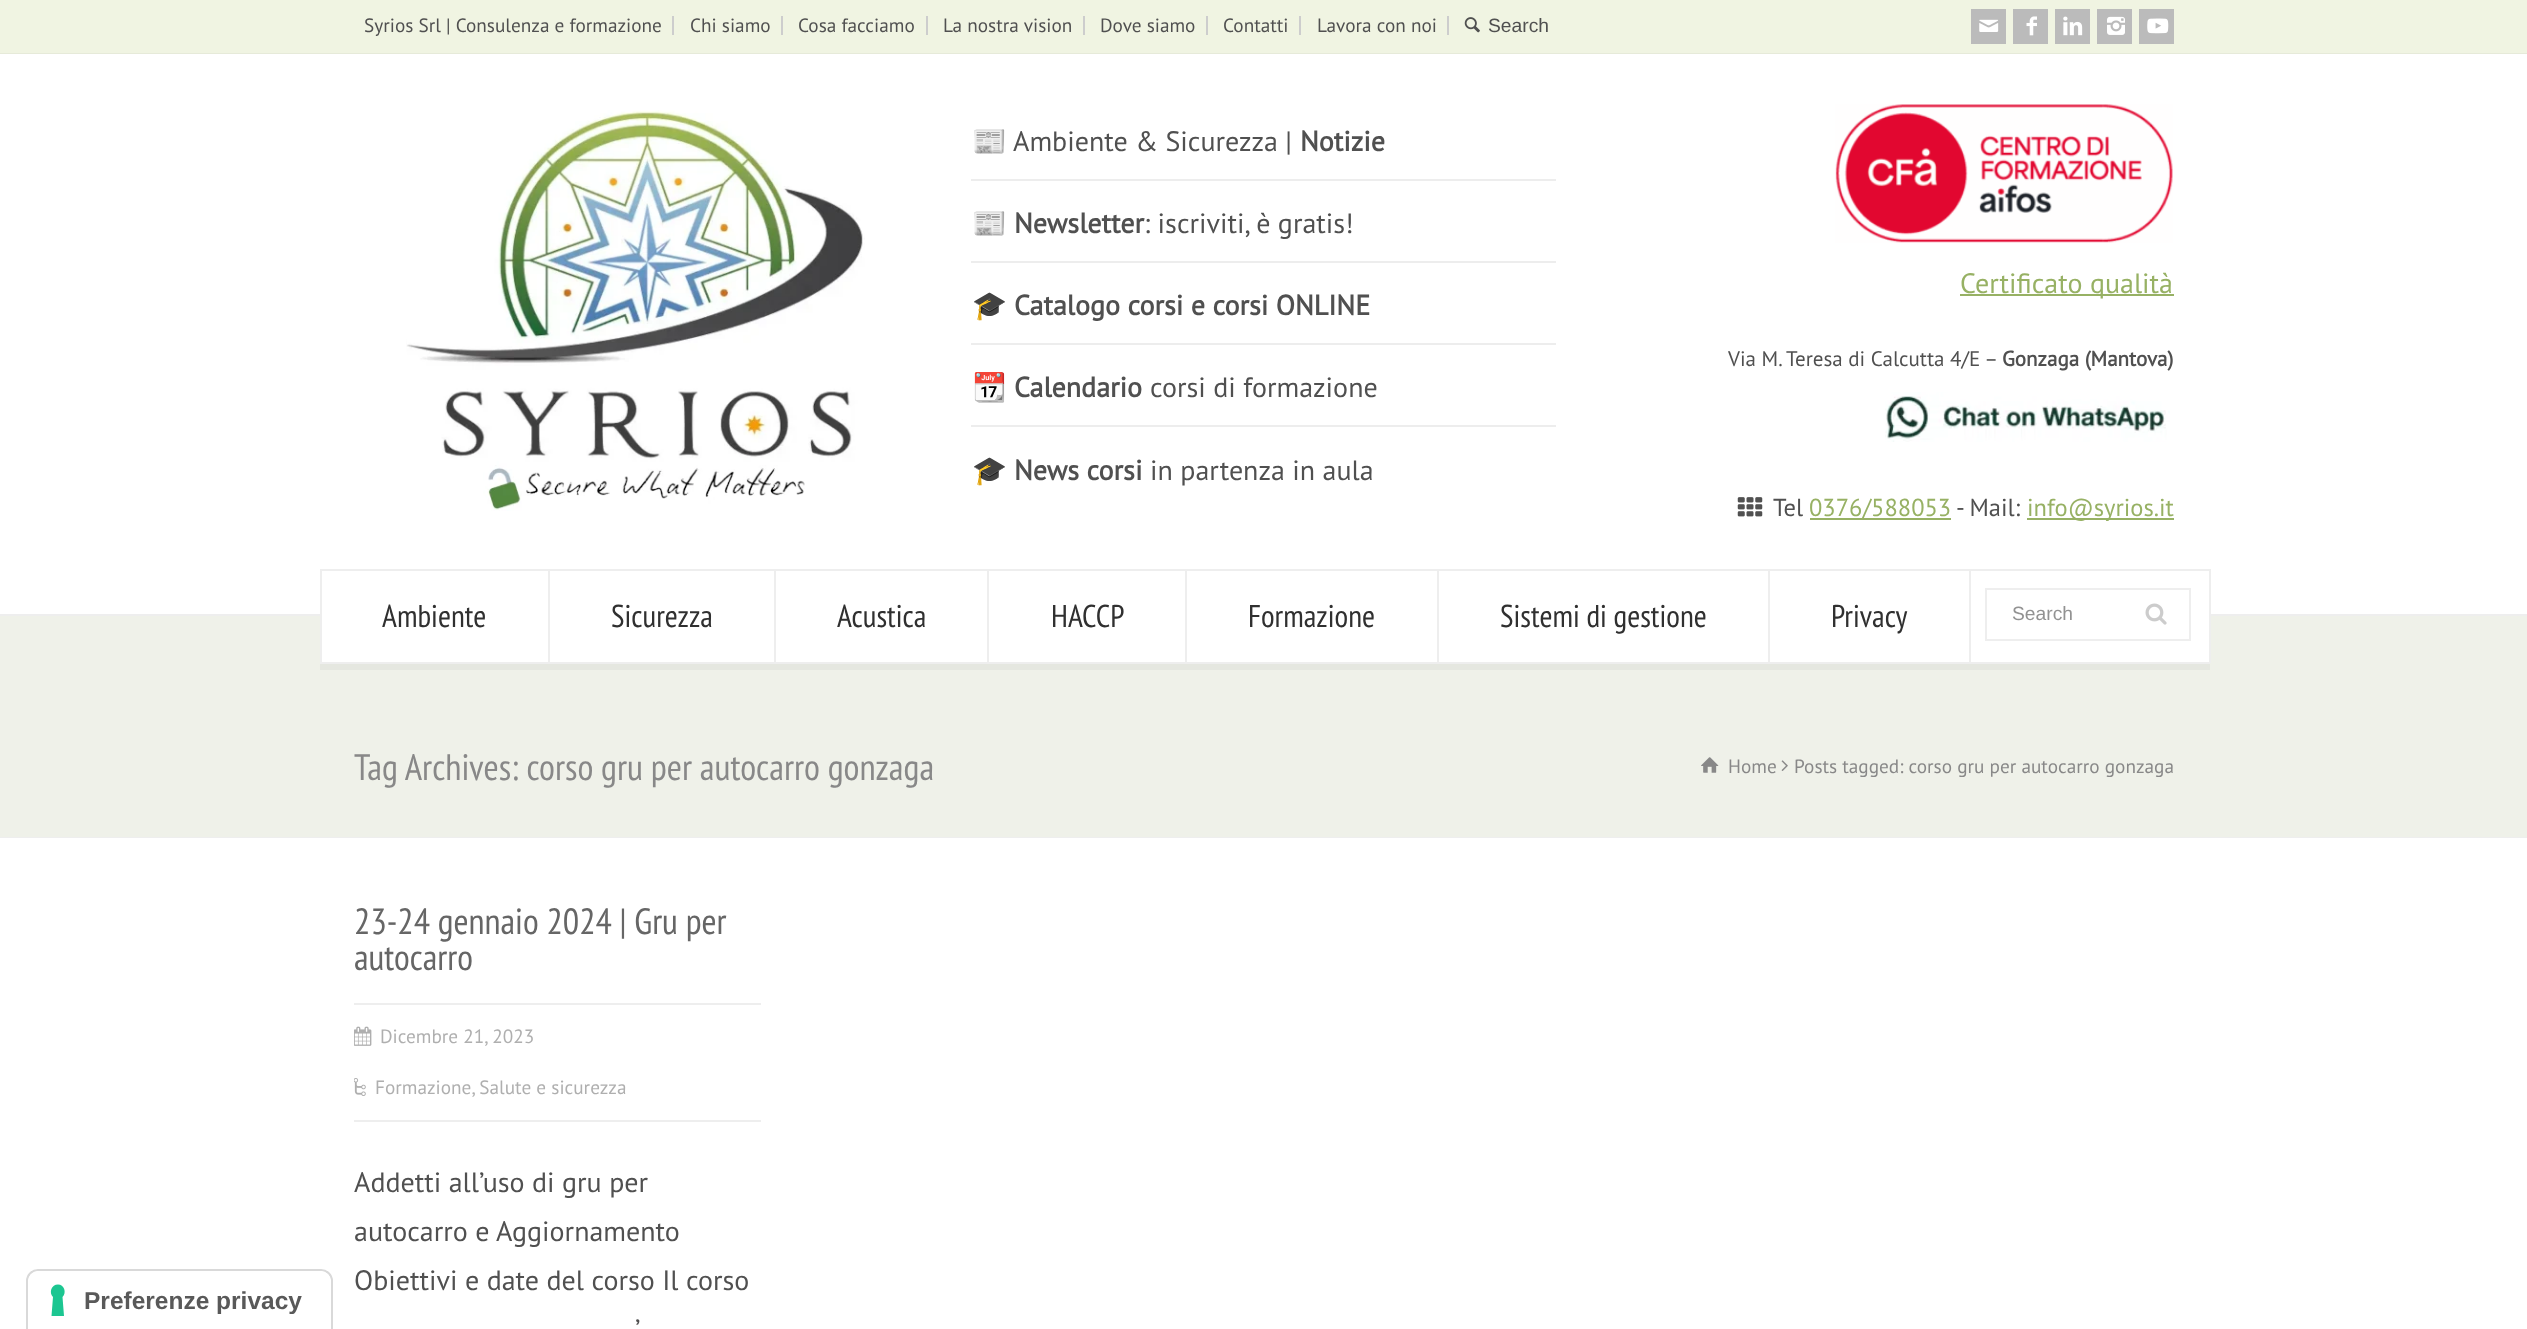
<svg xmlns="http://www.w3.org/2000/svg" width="2527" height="1329">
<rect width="100%" height="100%" fill="#f0f4e2"/>
<rect y="838" width="2527" height="491" fill="#fff"/>
<path d="M38 1270h283c6 0 11 5 11 11v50h-305v-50c0-6 5-11 11-11z" fill="none" stroke="#d9d9d9" stroke-width="2"/>
<path d="M39 1271h281c6 0 11 5 11 11v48h-303v-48c0-6 5-11 11-11z" fill="#fff"/>
<path d="M58 1284.5c6 0 9 8 4.5 12.5l1.5 19h-12.5l1.5-19c-4.5-4.5-1.5-12.5 5-12.5z" fill="#1cc691" fill-rule="evenodd"/>
<text x="84" y="1309" style="font-family:Liberation Sans;font-size:24.5px;font-weight:bold;fill:#595959">Preferenze privacy</text>
<rect y="53" width="2527" height="1" fill="#e6ead9"/>
<rect x="672" y="16" width="2" height="19" fill="#cdcdcd"/>
<text x="364" y="32" style="font-family:PT Sans;font-size:19.25px;fill:#505050">Syrios Srl | Consulenza e formazione</text>
<rect x="781" y="16" width="2" height="19" fill="#cdcdcd"/>
<text x="690" y="32" style="font-family:PT Sans;font-size:19.25px;fill:#505050">Chi siamo</text>
<rect x="926" y="16" width="2" height="19" fill="#cdcdcd"/>
<text x="798" y="32" style="font-family:PT Sans;font-size:19.25px;fill:#505050">Cosa facciamo</text>
<rect x="1083" y="16" width="2" height="19" fill="#cdcdcd"/>
<text x="943" y="32" style="font-family:PT Sans;font-size:19.25px;fill:#505050">La nostra vision</text>
<rect x="1206" y="16" width="2" height="19" fill="#cdcdcd"/>
<text x="1100" y="32" style="font-family:PT Sans;font-size:19.25px;fill:#505050">Dove siamo</text>
<rect x="1299" y="16" width="2" height="19" fill="#cdcdcd"/>
<text x="1223" y="32" style="font-family:PT Sans;font-size:19.25px;fill:#505050">Contatti</text>
<rect x="1447" y="16" width="2" height="19" fill="#cdcdcd"/>
<text x="1317" y="32" style="font-family:PT Sans;font-size:19.25px;fill:#505050">Lavora con noi</text>
<image x="1464" y="17" width="16" height="16" href="media/1.png"/>
<text x="1488" y="32" style="font-family:Liberation Sans;font-size:19.25px;fill:#505050">Search</text>
<rect x="1971" y="9" width="35" height="35" fill="#bbb"/>
<image x="1979" y="19" width="20" height="13" href="media/2.png"/>
<rect x="2013" y="9" width="35" height="35" fill="#bbb"/>
<image x="2026" y="16" width="11" height="20" href="media/3.png"/>
<rect x="2055" y="9" width="35" height="35" fill="#bbb"/>
<image x="2063" y="16" width="20" height="20" href="media/4.png"/>
<rect x="2097" y="9" width="35" height="35" fill="#bbb"/>
<image x="2107" y="16" width="18" height="19" href="media/5.png"/>
<rect x="2139" y="9" width="35" height="35" fill="#bbb"/>
<image x="2147" y="18" width="22" height="16" href="media/6.png"/>
<rect y="54" width="2527" height="560" fill="#fff"/>
<image x="406" y="110" width="459" height="401" href="media/7.png"/>
<rect x="971" y="179" width="585" height="2" fill="#ededed"/>
<text x="972" y="151" style="font-family:Noto Color Emoji;font-size:28px;fill:#505050">📰</text>
<text x="1013" y="151" style="font-family:PT Sans;font-size:28px;fill:#505050">Ambiente &amp; Sicurezza |</text>
<text x="1300" y="151" style="font-family:PT Sans;font-size:28px;font-weight:bold;fill:#505050">Notizie</text>
<rect x="971" y="261" width="585" height="2" fill="#ededed"/>
<text x="972" y="233" style="font-family:Noto Color Emoji;font-size:28px;fill:#505050">📰</text>
<text x="1014" y="233" style="font-family:PT Sans;font-size:28px;font-weight:bold;fill:#505050">Newsletter</text>
<text x="1144" y="233" style="font-family:PT Sans;font-size:28px;fill:#505050">: iscriviti, è gratis!</text>
<rect x="971" y="343" width="585" height="2" fill="#ededed"/>
<text x="972" y="315" style="font-family:Noto Color Emoji;font-size:28px;fill:#505050">🎓</text>
<text x="1014" y="315" style="font-family:PT Sans;font-size:28px;font-weight:bold;fill:#505050">Catalogo corsi e corsi ONLINE</text>
<rect x="971" y="425" width="585" height="2" fill="#ededed"/>
<text x="972" y="397" style="font-family:Noto Color Emoji;font-size:28px;fill:#505050">📆</text>
<text x="1014" y="397" style="font-family:PT Sans;font-size:28px;font-weight:bold;fill:#505050">Calendario</text>
<text x="1150" y="397" style="font-family:PT Sans;font-size:28px;fill:#505050">corsi di formazione</text>
<text x="972" y="480" style="font-family:Noto Color Emoji;font-size:28px;fill:#505050">🎓</text>
<text x="1014" y="480" style="font-family:PT Sans;font-size:28px;font-weight:bold;fill:#505050">News corsi</text>
<text x="1150" y="480" style="font-family:PT Sans;font-size:28px;fill:#505050">in partenza in aula</text>
<image x="1835" y="104" width="338" height="139" href="media/8.png"/>
<rect x="1960" y="294" width="214" height="2" fill="#97b164"/>
<text x="1960" y="293" style="font-family:PT Sans;font-size:28px;fill:#97b164">Certificato qualità</text>
<text x="1728" y="366" style="font-family:PT Sans;font-size:21px;fill:#505050">Via M. Teresa di Calcutta 4/E –</text>
<text x="2002" y="366" style="font-family:PT Sans;font-size:21px;font-weight:bold;fill:#505050">Gonzaga (Mantova)</text>
<image x="1885" y="392" width="285" height="50" href="media/9.png"/>
<image x="1737" y="497" width="26" height="20" href="media/10.png"/>
<text x="1773" y="516" style="font-family:PT Sans;font-size:24.5px;fill:#505050">Tel</text>
<rect x="1810" y="518" width="141" height="2" fill="#97b164"/>
<text x="1809" y="516" style="font-family:PT Sans;font-size:24.5px;fill:#97b164">0376/588053</text>
<text x="1956" y="516" style="font-family:PT Sans;font-size:24.5px;fill:#505050">- Mail:</text>
<rect x="2027" y="518" width="147" height="2" fill="#97b164"/>
<text x="2027" y="516" style="font-family:PT Sans;font-size:24.5px;fill:#97b164">info@syrios.it</text>
<rect y="616" width="2527" height="221" fill="#eff1e9"/>
<path d="M320 576v94h1890v-7h-1890z" fill="#e5e7e0"/>
<rect y="614" width="2527" height="2" fill="#eee"/>
<rect x="322" y="614" width="1887" height="48" fill="#fff"/>
<rect x="320" y="569" width="1890" height="2" fill="#eee"/>
<rect x="2209" y="569" width="2" height="94" fill="#eee"/>
<rect x="320" y="662" width="1890" height="2" fill="#eee"/>
<rect x="548" y="571" width="2" height="91" fill="#eee"/>
<rect x="320" y="571" width="2" height="91" fill="#eee"/>
<text x="382" y="627" style="font-family:PT Sans Narrow;font-size:31.5px;fill:#303030">Ambiente</text>
<rect x="774" y="571" width="2" height="91" fill="#eee"/>
<text x="611" y="627" style="font-family:PT Sans Narrow;font-size:31.5px;fill:#303030">Sicurezza</text>
<rect x="987" y="571" width="2" height="91" fill="#eee"/>
<text x="837" y="627" style="font-family:PT Sans Narrow;font-size:31.5px;fill:#303030">Acustica</text>
<rect x="1185" y="571" width="2" height="91" fill="#eee"/>
<text x="1051" y="627" style="font-family:PT Sans Narrow;font-size:31.5px;fill:#303030">HACCP</text>
<rect x="1437" y="571" width="2" height="91" fill="#eee"/>
<text x="1248" y="627" style="font-family:PT Sans Narrow;font-size:31.5px;fill:#303030">Formazione</text>
<rect x="1768" y="571" width="2" height="91" fill="#eee"/>
<text x="1500" y="627" style="font-family:PT Sans Narrow;font-size:31.5px;fill:#303030">Sistemi di gestione</text>
<rect x="1969" y="571" width="2" height="91" fill="#eee"/>
<text x="1831" y="627" style="font-family:PT Sans Narrow;font-size:31.5px;fill:#303030">Privacy</text>
<rect x="1986" y="589" width="204" height="51" fill="none" stroke="#eee" stroke-width="2"/>
<text x="2012" y="620" style="font-family:Liberation Sans;font-size:19.25px;fill:#929292">Search</text>
<image x="2145" y="603" width="22" height="22" href="media/11.png"/>
<rect y="837" width="2527" height="1" fill="#eee"/>
<text x="354" y="780" style="font-family:PT Sans Narrow;font-size:36.75px;fill:#888">Tag Archives: corso gru per autocarro gonzaga</text>
<image x="1701" y="757" width="18" height="16" href="media/12.png"/>
<text x="1728" y="773" style="font-family:PT Sans;font-size:19.25px;fill:#888">Home</text>
<image x="1781" y="760" width="7" height="11" href="media/13.png"/>
<text x="1794" y="773" style="font-family:PT Sans;font-size:19.25px;fill:#888">Posts tagged: corso gru per autocarro gonzaga</text>
<rect x="354" y="1120" width="407" height="2" fill="#eee"/>
<text x="354" y="934" style="font-family:PT Sans Narrow;font-size:36.4px;fill:#666">23-24 gennaio 2024 | Gru per</text>
<text x="354" y="970" style="font-family:PT Sans Narrow;font-size:36.4px;fill:#666">autocarro</text>
<rect x="354" y="1003" width="407" height="2" fill="#eee"/>
<image x="354" y="1026" width="18" height="20" href="media/14.png"/>
<text x="380" y="1043" style="font-family:PT Sans;font-size:19.25px;fill:#afafaf">Dicembre 21, 2023</text>
<image x="354" y="1078" width="12" height="18" href="media/15.png"/>
<text x="375" y="1094" style="font-family:PT Sans;font-size:19.25px;fill:#afafaf">Formazione, Salute e sicurezza</text>
<text x="354" y="1192" style="font-family:PT Sans;font-size:28px;fill:#505050">Addetti all’uso di gru per</text>
<text x="354" y="1241" style="font-family:PT Sans;font-size:28px;fill:#505050">autocarro e Aggiornamento</text>
<text x="354" y="1290" style="font-family:PT Sans;font-size:28px;fill:#505050">Obiettivi e date del corso Il corso</text>
<text x="635" y="1339" style="font-family:PT Sans;font-size:28px;fill:#505050">’</text>
</svg>
